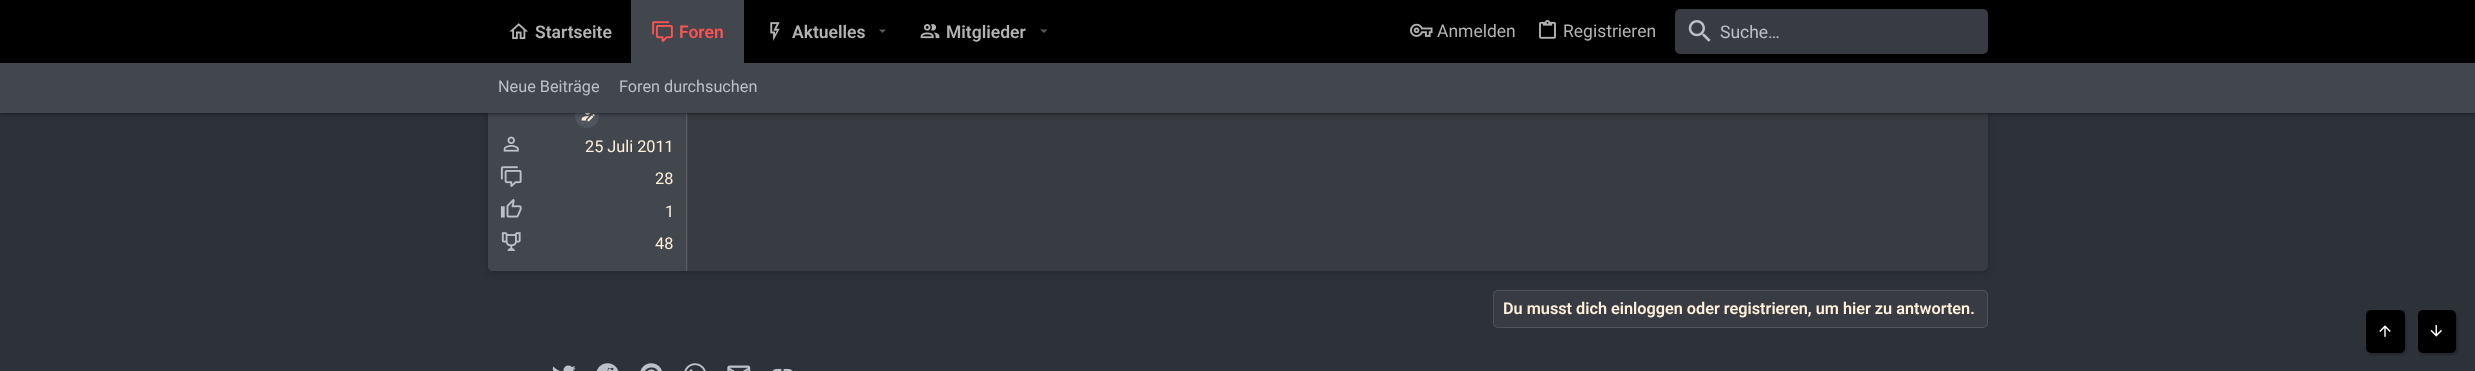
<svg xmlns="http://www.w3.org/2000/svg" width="2475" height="371">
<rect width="100%" height="100%" fill="#2d3238"/>
<rect x="488" y="-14" width="1500" height="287" rx="5" fill="#00000033" filter="blur(3px)"/>
<rect x="488" y="-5" width="1500" height="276" rx="5" fill="#383c42"/>
<path d="M492-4h196v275h-196c-2 0-4-2-4-4v-267c0-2 2-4 4-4z" fill="#42464d"/>
<rect width="2475" height="63" fill="#000"/>
<image x="509" y="23" width="19" height="17" href="media/1.png"/>
<text x="535" y="38" style="font-family:Roboto;font-size:17.5px;font-weight:600;fill:#b3b3b3">Startseite</text>
<rect x="686" y="113" width="1" height="158" fill="#595c62"/>
<circle cx="587" cy="116" r="12" fill="#4f545e"/>
<image x="581" y="113" width="14" height="9" href="media/8.png"/>
<rect y="64" width="2475" height="50" fill="#00000033" filter="blur(3px)"/>
<rect y="65" width="2475" height="50" fill="#00000024" filter="blur(1px)"/>
<rect x="631" width="113" height="63" fill="#42464d"/>
<image x="652" y="21" width="21" height="21" href="media/2.png"/>
<text x="679" y="38" style="font-family:Roboto;font-size:17.5px;font-weight:600;fill:#ff5353">Foren</text>
<image x="770" y="22" width="10" height="19" href="media/3.png"/>
<text x="792" y="38" style="font-family:Roboto;font-size:17.5px;font-weight:600;fill:#b3b3b3">Aktuelles</text>
<path d="M879 29.5l3.5 3.5l3.5-3.5z" fill="#5a5a5a"/>
<image x="920" y="24" width="20" height="15" href="media/4.png"/>
<text x="946" y="38" style="font-family:Roboto;font-size:17.5px;font-weight:600;fill:#b3b3b3">Mitglieder</text>
<path d="M1040 29.5l4 3.5l3.5-3.5z" fill="#5a5a5a"/>
<image x="1410" y="23" width="23" height="14" href="media/5.png"/>
<text x="1437" y="37" style="font-family:Roboto;font-size:17.5px;fill:#b3b3b3">Anmelden</text>
<image x="1539" y="20" width="17" height="19" href="media/6.png"/>
<text x="1563" y="37" style="font-family:Roboto;font-size:17.5px;fill:#b3b3b3">Registrieren</text>
<rect x="1675" y="9" width="313" height="45" rx="5" fill="#383c42"/>
<image x="1688" y="20" width="23" height="22" href="media/7.png"/>
<text x="1720" y="38" style="font-family:Roboto;font-size:17.5px;fill:#bcc0c7">Suche…</text>
<rect x="3" y="69" width="2470" height="45" fill="#0000001f" filter="blur(0.5px)"/>
<rect y="63" width="2475" height="50" fill="#42464d"/>
<text x="498" y="92" style="font-family:Roboto;font-size:16.25px;fill:#bcc0c7">Neue Beiträge</text>
<text x="619" y="92" style="font-family:Roboto;font-size:16.25px;fill:#bcc0c7">Foren durchsuchen</text>
<image x="503" y="136" width="16" height="16" href="media/9.png"/>
<text x="585" y="152" style="font-family:Roboto;font-size:16.25px;fill:#fff0dc">25 Juli 2011</text>
<image x="500" y="166" width="22" height="21" href="media/10.png"/>
<text x="655" y="184" style="font-family:Roboto;font-size:16.25px;fill:#fff0dc">28</text>
<image x="500" y="198" width="22" height="20" href="media/11.png"/>
<text x="665" y="217" style="font-family:Roboto;font-size:16.25px;fill:#fff0dc">1</text>
<image x="501" y="232" width="20" height="19" href="media/12.png"/>
<text x="655" y="249" style="font-family:Roboto;font-size:16.25px;fill:#fff0dc">48</text>
<rect x="1493" y="290" width="495" height="38" rx="5" fill="#383c42"/>
<rect x="1493.5" y="290.5" width="494" height="37" rx="4.5" fill="none" stroke="#ffffff1f"/>
<text x="1503" y="314" style="font-family:Roboto;font-size:16.25px;font-weight:600;fill:#fff0dc">Du musst dich einloggen oder registrieren, um hier zu antworten.</text>
<image x="552" y="365" width="24" height="6" href="media/13.png"/>
<image x="596" y="363" width="23" height="8" href="media/14.png"/>
<image x="640" y="363" width="22" height="8" href="media/15.png"/>
<image x="684" y="363" width="22" height="8" href="media/16.png"/>
<image x="727" y="365" width="24" height="6" href="media/17.png"/>
<image x="772" y="368" width="21" height="3" href="media/18.png"/>
<rect x="2368" y="313" width="38" height="42" rx="5" fill="#00000040" filter="blur(1px)"/>
<rect x="2366" y="310" width="39" height="43" rx="5" fill="#000"/>
<image x="2379" y="325" width="12" height="12" href="media/19.png"/>
<rect x="2419" y="313" width="39" height="42" rx="5" fill="#00000040" filter="blur(1px)"/>
<rect x="2418" y="310" width="38" height="43" rx="5" fill="#000"/>
<image x="2430" y="325" width="12" height="12" href="media/20.png"/>
</svg>
